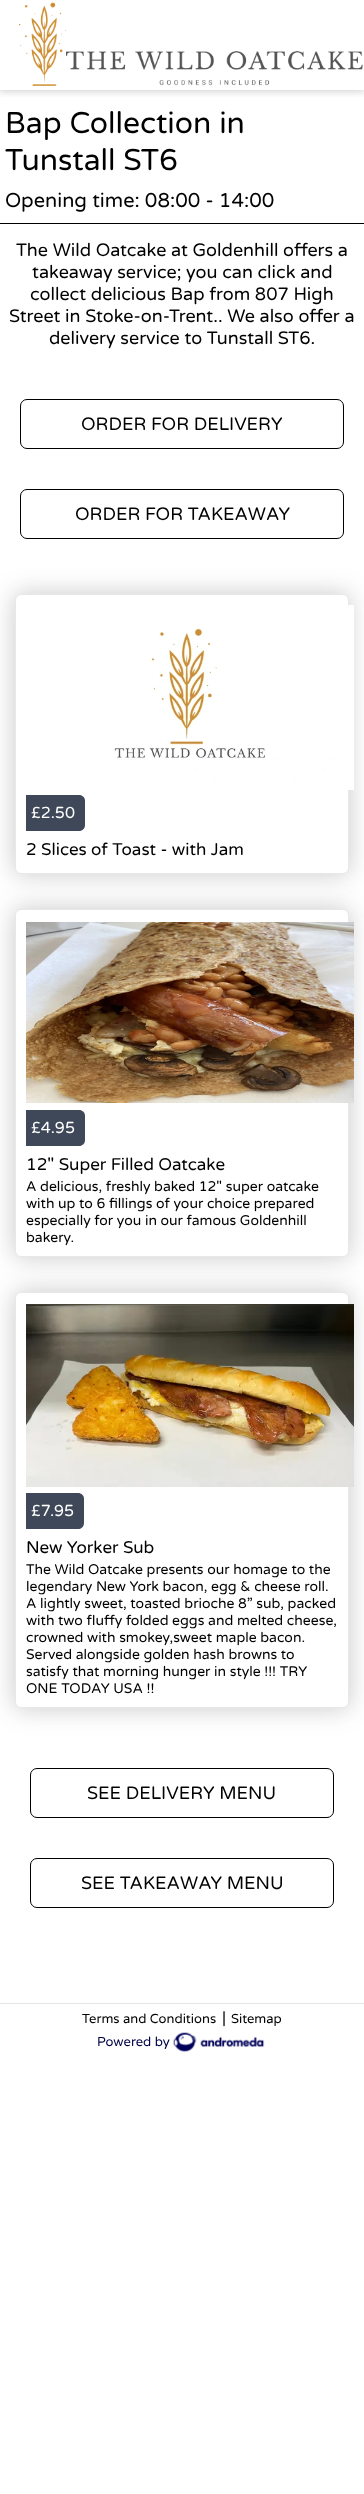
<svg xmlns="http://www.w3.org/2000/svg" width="364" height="2494">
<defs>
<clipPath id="clip1"><rect x="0" y="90" width="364" height="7"/></clipPath>
</defs>
<rect width="100%" height="100%" fill="#fff"/>
<g clip-path="url(#clip1)">
<rect x="-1" y="-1" width="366" height="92" fill="#35353540" filter="blur(4px)"/>
</g>
<image x="19" y="2" width="344" height="84" href="media/1.png"/>
<text x="5" y="133" style="font-family:Varela Round;font-size:30px;fill:#000">Bap Collection in</text>
<text x="5" y="170" style="font-family:Varela Round;font-size:30px;fill:#000">Tunstall ST6</text>
<rect y="223" width="364" height="1" fill="#000"/>
<text x="5" y="207" style="font-family:Varela Round;font-size:20px;fill:#000">Opening time: 08:00 - 14:00</text>
<text x="16" y="256" style="font-family:Varela Round;font-size:18px;fill:#000">The Wild Oatcake at Goldenhill offers a</text>
<text x="32" y="278" style="font-family:Varela Round;font-size:18px;fill:#000">takeaway service; you can click and</text>
<text x="30" y="300" style="font-family:Varela Round;font-size:18px;fill:#000">collect delicious Bap from 807 High</text>
<text x="9" y="322" style="font-family:Varela Round;font-size:18px;fill:#000">Street in Stoke-on-Trent.. We also offer a</text>
<text x="49" y="344" style="font-family:Varela Round;font-size:18px;fill:#000">delivery service to Tunstall ST6.</text>
<rect x="20.5" y="399.5" width="323" height="49" rx="6.5" fill="none" stroke="#000"/>
<text x="81" y="430" style="font-family:Varela Round;font-size:18px;fill:#000">ORDER FOR DELIVERY</text>
<rect x="20.5" y="489.5" width="323" height="49" rx="6.5" fill="none" stroke="#000"/>
<text x="75" y="520" style="font-family:Varela Round;font-size:18px;fill:#000">ORDER FOR TAKEAWAY</text>
<rect x="14" y="593" width="336" height="282" rx="7" fill="#35353540" filter="blur(12.5px)"/>
<rect x="15.5" y="594.5" width="333" height="279" rx="5.5" fill="#fff" stroke="#e8e8e8"/>
<image x="114" y="605" width="240" height="185" href="media/2.png"/>
<path d="M26 795h53c3.5 0 6 2.5 6 6v24c0 3.5-2.5 6-6 6h-53z" fill="#3f4858"/>
<text x="31" y="818" style="font-family:Varela Round;font-size:16px;fill:#fff">£2.50</text>
<text x="26" y="855" style="font-family:Varela Round;font-size:17px;fill:#000">2 Slices of Toast - with Jam</text>
<rect x="14" y="908" width="336" height="350" rx="7" fill="#35353540" filter="blur(12.5px)"/>
<rect x="15.5" y="909.5" width="333" height="347" rx="5.5" fill="#fff" stroke="#e8e8e8"/>
<image x="26" y="922" width="328" height="181" href="media/3.png"/>
<path d="M26 1110h53c3.5 0 6 2.5 6 6v24c0 3.5-2.5 6-6 6h-53z" fill="#3f4858"/>
<text x="31" y="1133" style="font-family:Varela Round;font-size:16px;fill:#fff">£4.95</text>
<text x="26" y="1170" style="font-family:Varela Round;font-size:17px;fill:#000">12" Super Filled Oatcake</text>
<text x="26" y="1191" style="font-family:Varela Round;font-size:14px;fill:#000">A delicious, freshly baked 12" super oatcake</text>
<text x="26" y="1208" style="font-family:Varela Round;font-size:14px;fill:#000">with up to 6 fillings of your choice prepared</text>
<text x="26" y="1225" style="font-family:Varela Round;font-size:14px;fill:#000">especially for you in our famous Goldenhill</text>
<text x="26" y="1242" style="font-family:Varela Round;font-size:14px;fill:#000">bakery.</text>
<rect x="14" y="1291" width="336" height="418" rx="7" fill="#35353540" filter="blur(12.5px)"/>
<rect x="15.5" y="1292.5" width="333" height="415" rx="5.5" fill="#fff" stroke="#e8e8e8"/>
<image x="26" y="1304" width="328" height="183" href="media/4.png"/>
<path d="M26 1493h52c3.5 0 6 2.5 6 6v24c0 3.5-2.5 6-6 6h-52z" fill="#3f4858"/>
<text x="31" y="1516" style="font-family:Varela Round;font-size:16px;fill:#fff">£7.95</text>
<text x="26" y="1553" style="font-family:Varela Round;font-size:17px;fill:#000">New Yorker Sub</text>
<text x="26" y="1574" style="font-family:Varela Round;font-size:14px;fill:#000">The Wild Oatcake presents our homage to the</text>
<text x="26" y="1591" style="font-family:Varela Round;font-size:14px;fill:#000">legendary New York bacon, egg &amp; cheese roll.</text>
<text x="26" y="1608" style="font-family:Varela Round;font-size:14px;fill:#000">A lightly sweet, toasted brioche 8” sub, packed</text>
<text x="26" y="1625" style="font-family:Varela Round;font-size:14px;fill:#000">with two fluffy folded eggs and melted cheese,</text>
<text x="26" y="1642" style="font-family:Varela Round;font-size:14px;fill:#000">crowned with smokey,sweet maple bacon.</text>
<text x="26" y="1659" style="font-family:Varela Round;font-size:14px;fill:#000">Served alongside golden hash browns to</text>
<text x="26" y="1676" style="font-family:Varela Round;font-size:14px;fill:#000">satisfy that morning hunger in style !!! TRY</text>
<text x="26" y="1693" style="font-family:Varela Round;font-size:14px;fill:#000">ONE TODAY USA !!</text>
<rect x="30.5" y="1768.5" width="303" height="49" rx="6.5" fill="none" stroke="#000"/>
<text x="87" y="1799" style="font-family:Varela Round;font-size:18px;fill:#000">SEE DELIVERY MENU</text>
<rect x="30.5" y="1858.5" width="303" height="49" rx="6.5" fill="none" stroke="#000"/>
<text x="81" y="1889" style="font-family:Varela Round;font-size:18px;fill:#000">SEE TAKEAWAY MENU</text>
<rect y="2003" width="364" height="1" fill="#e6e6e6"/>
<text x="82" y="2023" style="font-family:Varela Round;font-size:13px;fill:#000">Terms and Conditions</text>
<text x="222" y="2023" style="font-family:Varela Round;font-size:16px;fill:#000">|</text>
<text x="231" y="2023" style="font-family:Varela Round;font-size:13px;fill:#000">Sitemap</text>
<text x="97" y="2046" style="font-family:Varela Round;font-size:13px;fill:#000045">Powered by</text>
<image x="172" y="2032" width="93" height="20" href="media/5.png"/>
</svg>
